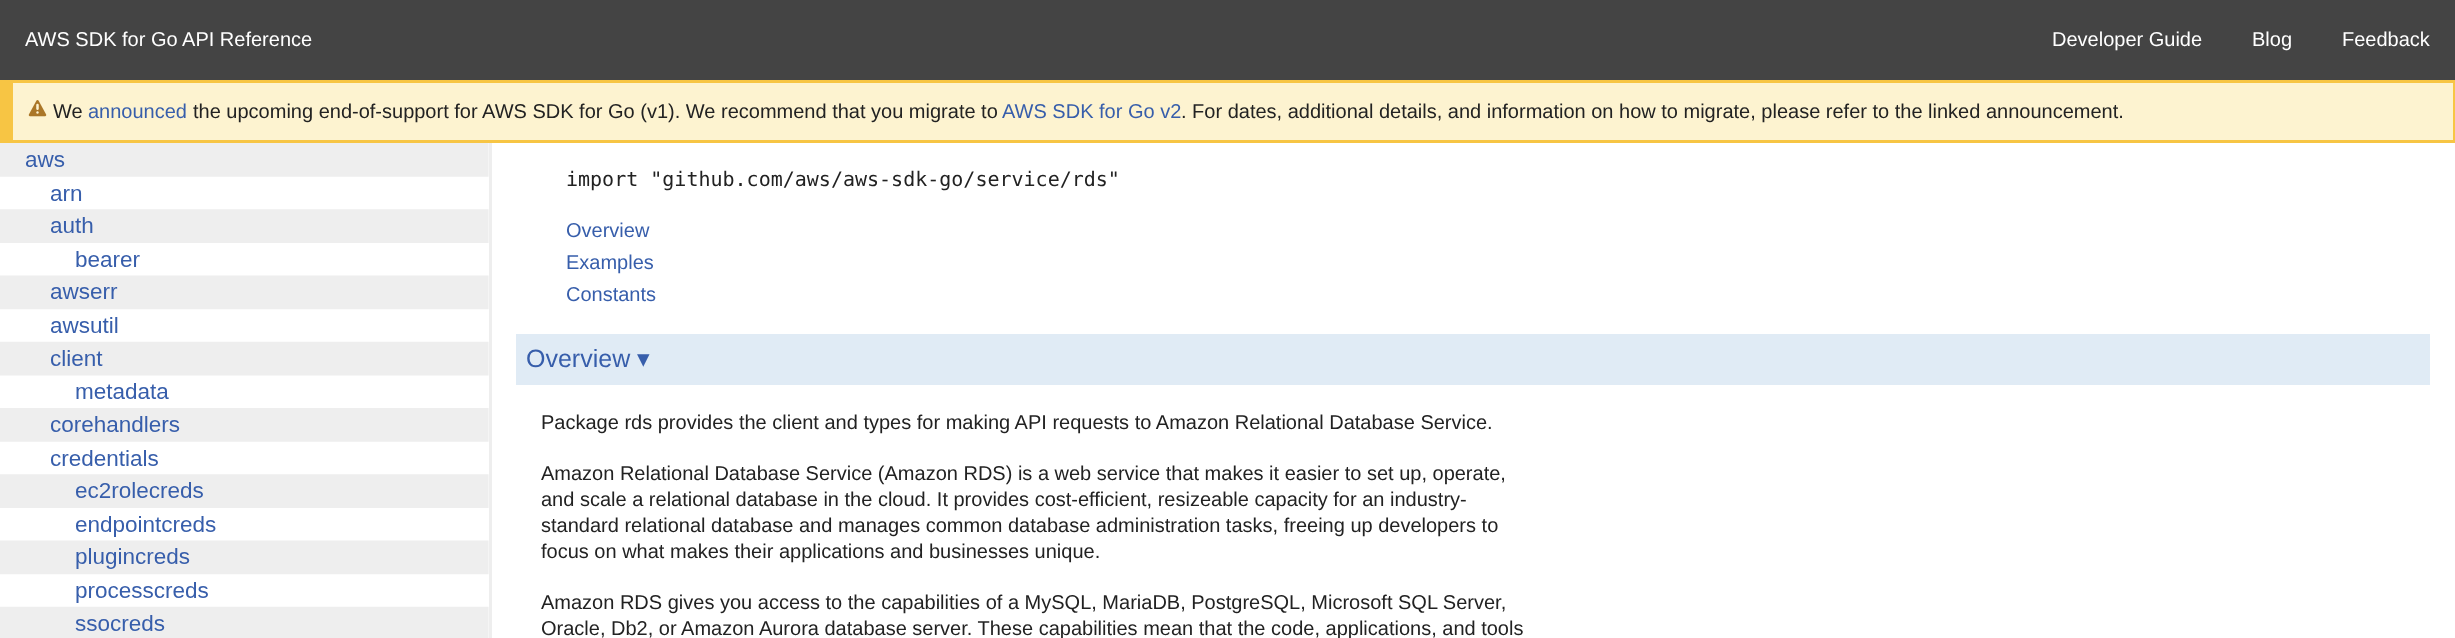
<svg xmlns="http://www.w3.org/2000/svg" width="2455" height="638">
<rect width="100%" height="100%" fill="#fff"/>
<rect width="2455" height="80" fill="#444"/>
<text x="25" y="46" style="font-family:Liberation Sans;font-size:20px;fill:#fff">AWS SDK for Go API Reference</text>
<text x="2052" y="46" style="font-family:Liberation Sans;font-size:20px;fill:#fff">Developer Guide</text>
<text x="2252" y="46" style="font-family:Liberation Sans;font-size:20px;fill:#fff">Blog</text>
<text x="2342" y="46" style="font-family:Liberation Sans;font-size:20px;fill:#fff">Feedback</text>
<rect x="13" y="83" width="2440" height="57" fill="#fdf3d0"/>
<rect x="13" y="80" width="2442" height="3" fill="#f7c544"/>
<rect x="2453" y="80" width="2" height="63" fill="#f7c544"/>
<rect x="13" y="140" width="2442" height="3" fill="#f7c544"/>
<rect y="80" width="13" height="63" fill="#f7c544"/>
<image x="28" y="100" width="19" height="17" href="media/1.png"/>
<text x="53" y="118" style="font-family:Liberation Sans;font-size:20px;fill:#222">We</text>
<text x="88" y="118" style="font-family:Liberation Sans;font-size:20px;fill:#375eab">announced</text>
<text x="193" y="118" style="font-family:Liberation Sans;font-size:20px;fill:#222">the upcoming end-of-support for AWS SDK for Go (v1). We recommend that you migrate to</text>
<text x="1002" y="118" style="font-family:Liberation Sans;font-size:20px;fill:#375eab">AWS SDK for Go v2</text>
<text x="1181" y="118" style="font-family:Liberation Sans;font-size:20px;fill:#222">. For dates, additional details, and information on how to migrate, please refer to the linked announcement.</text>
<rect x="489" y="143" width="3" height="495" fill="#eee"/>
<image x="0" y="143" width="489" height="495" href="media/2.png"/>
<text x="566" y="186" style="font-family:DejaVu Sans Mono;font-size:20px;fill:#222">import "github.com/aws/aws-sdk-go/service/rds"</text>
<text x="566" y="237" style="font-family:Liberation Sans;font-size:20px;fill:#375eab">Overview</text>
<text x="566" y="269" style="font-family:Liberation Sans;font-size:20px;fill:#375eab">Examples</text>
<text x="566" y="301" style="font-family:Liberation Sans;font-size:20px;fill:#375eab">Constants</text>
<rect x="516" y="334" width="1914" height="51" fill="#e0ebf5"/>
<text x="526" y="367" style="font-family:Liberation Sans;font-size:25px;fill:#375eab">Overview</text>
<text x="637" y="367" style="font-family:DejaVu Sans;font-size:25px;fill:#375eab">▾</text>
<text x="541" y="429" style="font-family:Liberation Sans;font-size:20px;fill:#222">Package rds provides the client and types for making API requests to Amazon Relational Database Service.</text>
<text x="541" y="480" style="font-family:Liberation Sans;font-size:20px;fill:#222">Amazon Relational Database Service (Amazon RDS) is a web service that makes it easier to set up, operate,</text>
<text x="541" y="506" style="font-family:Liberation Sans;font-size:20px;fill:#222">and scale a relational database in the cloud. It provides cost-efficient, resizeable capacity for an industry-</text>
<text x="541" y="532" style="font-family:Liberation Sans;font-size:20px;fill:#222">standard relational database and manages common database administration tasks, freeing up developers to</text>
<text x="541" y="558" style="font-family:Liberation Sans;font-size:20px;fill:#222">focus on what makes their applications and businesses unique.</text>
<text x="541" y="609" style="font-family:Liberation Sans;font-size:20px;fill:#222">Amazon RDS gives you access to the capabilities of a MySQL, MariaDB, PostgreSQL, Microsoft SQL Server,</text>
<text x="541" y="635" style="font-family:Liberation Sans;font-size:20px;fill:#222">Oracle, Db2, or Amazon Aurora database server. These capabilities mean that the code, applications, and tools</text>
</svg>
